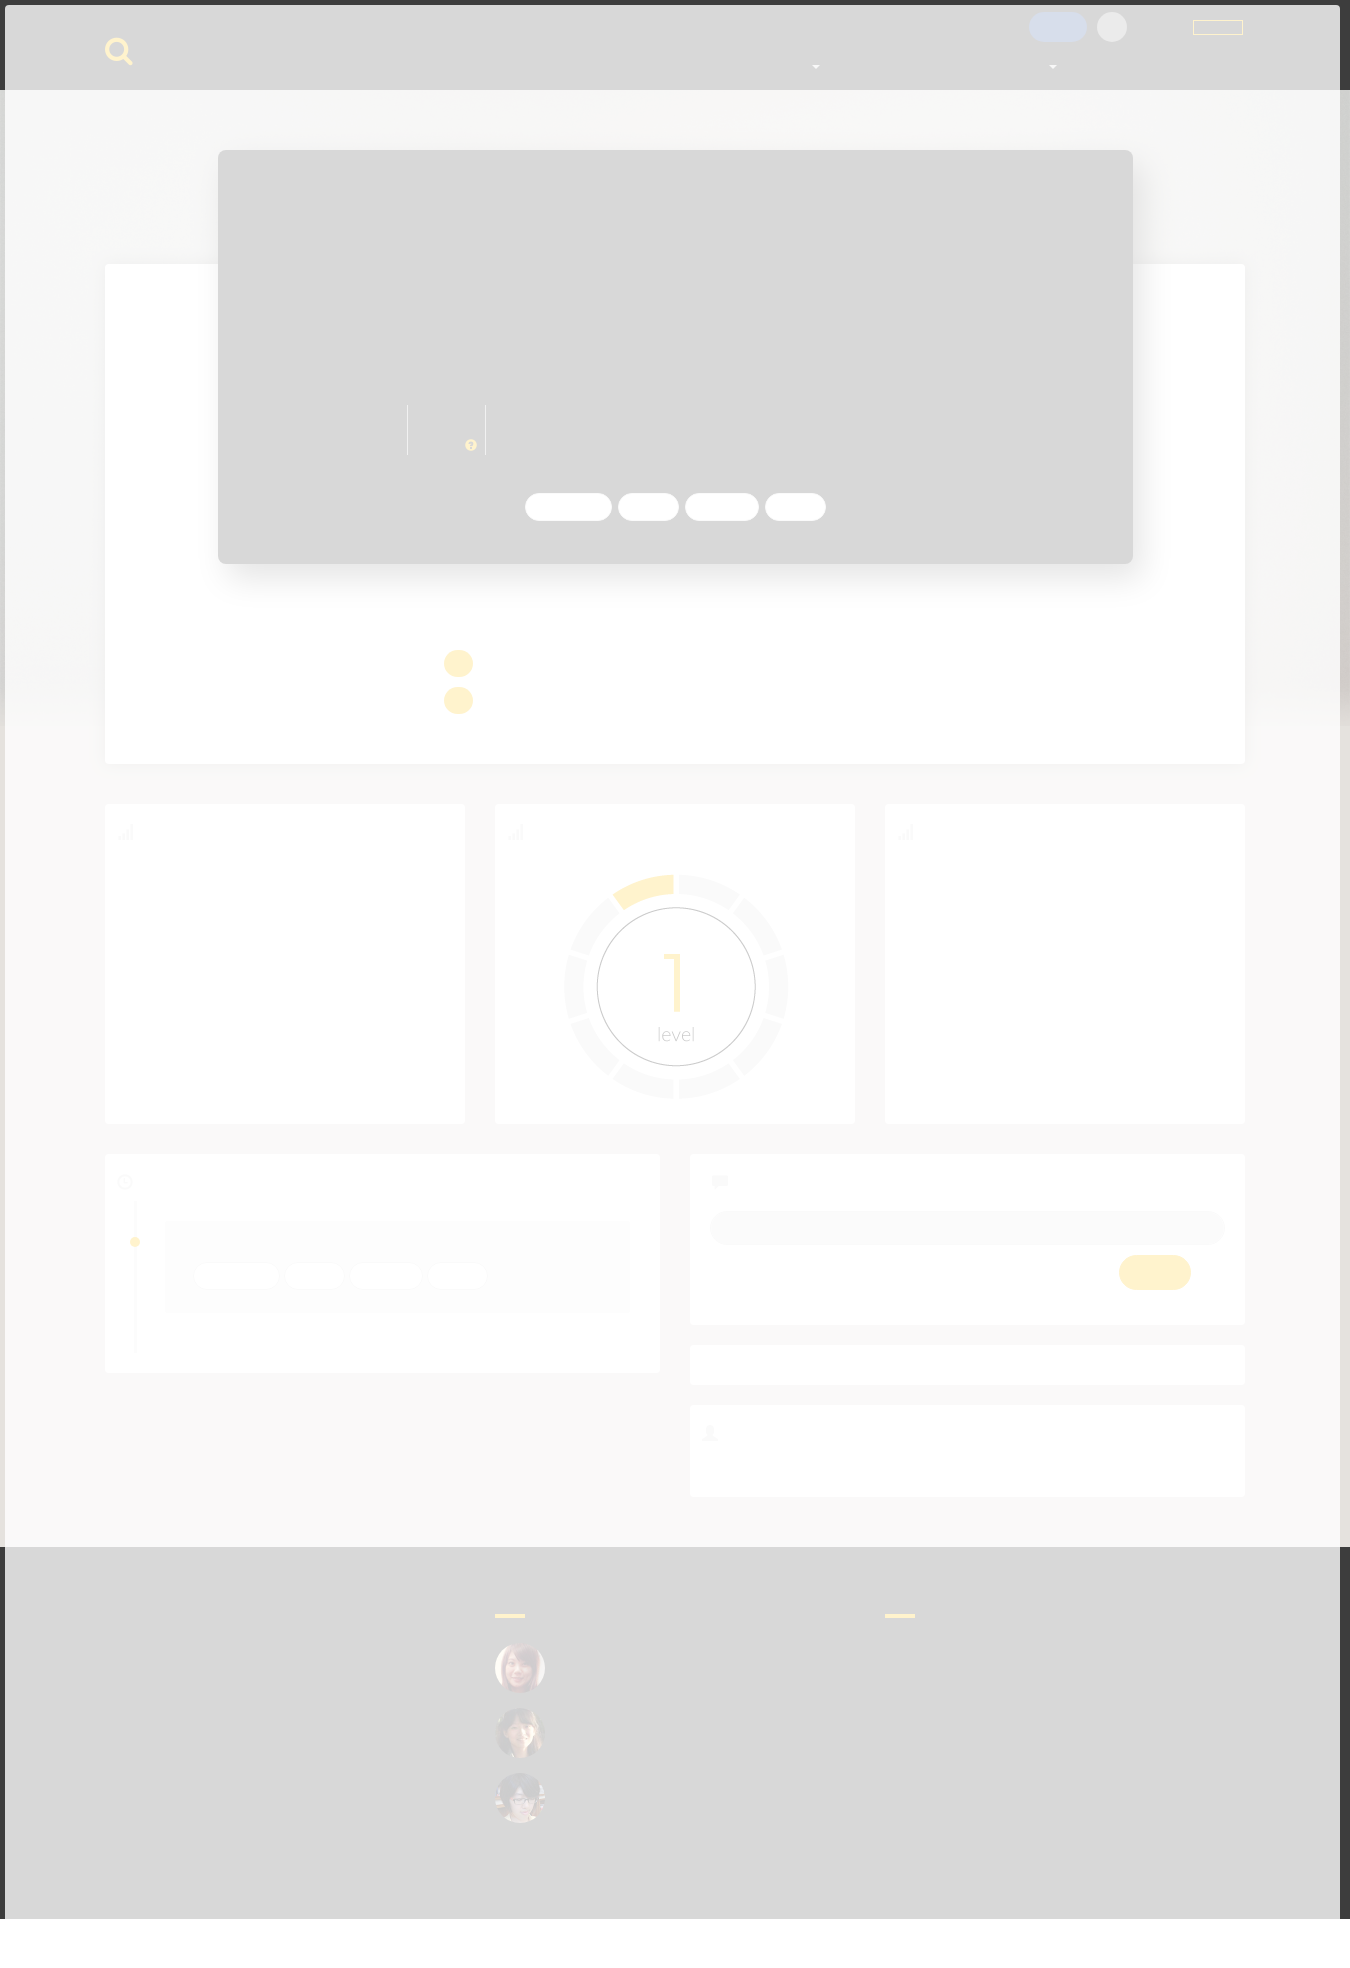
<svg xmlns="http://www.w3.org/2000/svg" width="1350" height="1968">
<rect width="100%" height="100%" fill="#fff"/>
<rect width="1350" height="90" fill="#3d3d3d"/>
<image x="105" y="37" width="28" height="29" href="media/1.png"/>
<rect x="1029" y="12" width="58" height="30" rx="15" fill="#3b5999"/>
<image x="1097" y="12" width="30" height="30" href="media/2.png"/>
<rect x="1193.5" y="20.5" width="49" height="14" fill="none" stroke="#fdc109"/>
<path d="M812 65h8l-4 4z" fill="#ddd"/>
<path d="M1049 65h8l-4 4z" fill="#ddd"/>
<rect y="726" width="1350" height="821" fill="#e5e2de"/>
<image x="0" y="90" width="1350" height="636" href="media/3.png"/>
<rect x="105" y="264" width="1140" height="500" rx="4" fill="#00000033" filter="blur(7.5px)"/>
<rect x="105" y="264" width="1140" height="500" rx="4" fill="#fff"/>
<rect x="227" y="165" width="915" height="414" rx="8" fill="#00000080" filter="blur(16px)"/>
<rect x="218" y="150" width="915" height="414" rx="8" fill="#3d3d3d"/>
<rect x="407" y="405" width="1" height="50" fill="#bbb"/>
<image x="465" y="439" width="12" height="12" href="media/4.png"/>
<rect x="485" y="405" width="1" height="50" fill="#bbb"/>
<rect x="525.5" y="493.5" width="86" height="27" rx="13.5" fill="#fff" stroke="#e5e5e5"/>
<rect x="618.5" y="493.5" width="60" height="27" rx="13.5" fill="#fff" stroke="#e5e5e5"/>
<rect x="685.5" y="493.5" width="73" height="27" rx="13.5" fill="#fff" stroke="#e5e5e5"/>
<rect x="765.5" y="493.5" width="60" height="27" rx="13.5" fill="#fff" stroke="#e5e5e5"/>
<rect x="444" y="650" width="29" height="27" rx="13.5" fill="#fdc109"/>
<rect x="444" y="687" width="29" height="27" rx="13.5" fill="#fdc109"/>
<rect x="105" y="804" width="360" height="320" rx="4" fill="#fff"/>
<image x="118" y="824" width="15" height="16" href="media/5.png"/>
<rect x="495" y="804" width="360" height="320" rx="4" fill="#fff"/>
<image x="508" y="824" width="15" height="16" href="media/5.png"/>
<image x="564" y="874" width="225" height="225" href="media/6.png"/>
<rect x="885" y="804" width="360" height="320" rx="4" fill="#fff"/>
<image x="898" y="824" width="15" height="16" href="media/5.png"/>
<rect x="105" y="1154" width="555" height="219" rx="4" fill="#fff"/>
<image x="117" y="1174" width="16" height="16" href="media/7.png"/>
<rect x="134" y="1201" width="3" height="152" fill="#eee"/>
<circle cx="135" cy="1242" r="5" fill="#fdc109"/>
<rect x="165" y="1221" width="465" height="92" rx="2" fill="#f5f5f5"/>
<rect x="193.5" y="1262.5" width="86" height="27" rx="13.5" fill="#fff" stroke="#e5e5e5"/>
<rect x="284.5" y="1262.5" width="60" height="27" rx="13.5" fill="#fff" stroke="#e5e5e5"/>
<rect x="349.5" y="1262.5" width="73" height="27" rx="13.5" fill="#fff" stroke="#e5e5e5"/>
<rect x="427.5" y="1262.5" width="60" height="27" rx="13.5" fill="#fff" stroke="#e5e5e5"/>
<rect x="690" y="1154" width="555" height="171" rx="4" fill="#fff"/>
<image x="712" y="1175" width="16" height="15" href="media/8.png"/>
<path d="M727 1212c-19 0-22 28-3 32h484l6-1c16-7 11-31-6-31z" fill="#ececec"/>
<rect x="710.5" y="1211.5" width="514" height="33" rx="16.5" fill="none" stroke="#e5e5e5"/>
<rect x="1119.5" y="1255.5" width="71" height="34" rx="17" fill="#fdc109" stroke="#fdc109"/>
<rect x="690" y="1345" width="555" height="40" rx="4" fill="#fff"/>
<rect x="690" y="1405" width="555" height="92" rx="4" fill="#fff"/>
<image x="702" y="1425" width="16" height="16" href="media/9.png"/>
<rect y="1547" width="1350" height="372" fill="#3d3d3d"/>
<rect x="495" y="1614" width="30" height="4" fill="#fdc109"/>
<image x="495" y="1643" width="50" height="50" href="media/10.png"/>
<image x="495" y="1708" width="50" height="50" href="media/11.png"/>
<image x="495" y="1773" width="50" height="50" href="media/12.png"/>
<rect x="885" y="1614" width="30" height="4" fill="#fdc109"/>
<rect x="5" y="5" width="1335" height="1953" rx="4" fill="#ffffffcc"/>
</svg>
